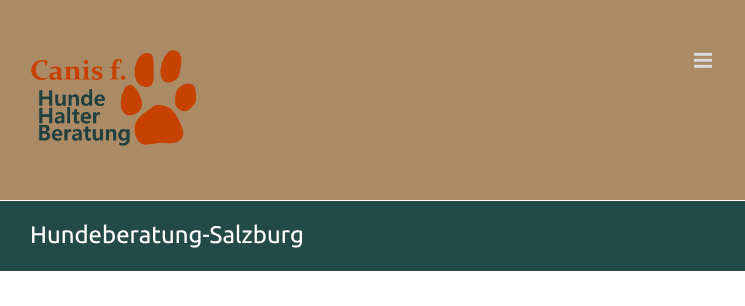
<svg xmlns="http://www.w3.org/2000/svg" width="745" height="306">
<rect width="100%" height="100%" fill="#fff"/>
<rect width="745" height="200" fill="#ab8b65"/>
<image x="31" y="50" width="165" height="96" href="media/1.png"/>
<image x="694" y="52" width="18" height="16" href="media/2.png"/>
<rect y="201" width="745" height="70" fill="#234949"/>
<text x="30" y="243" style="font-family:Ubuntu;font-size:24px;fill:#fff">Hundeberatung-Salzburg</text>
</svg>
